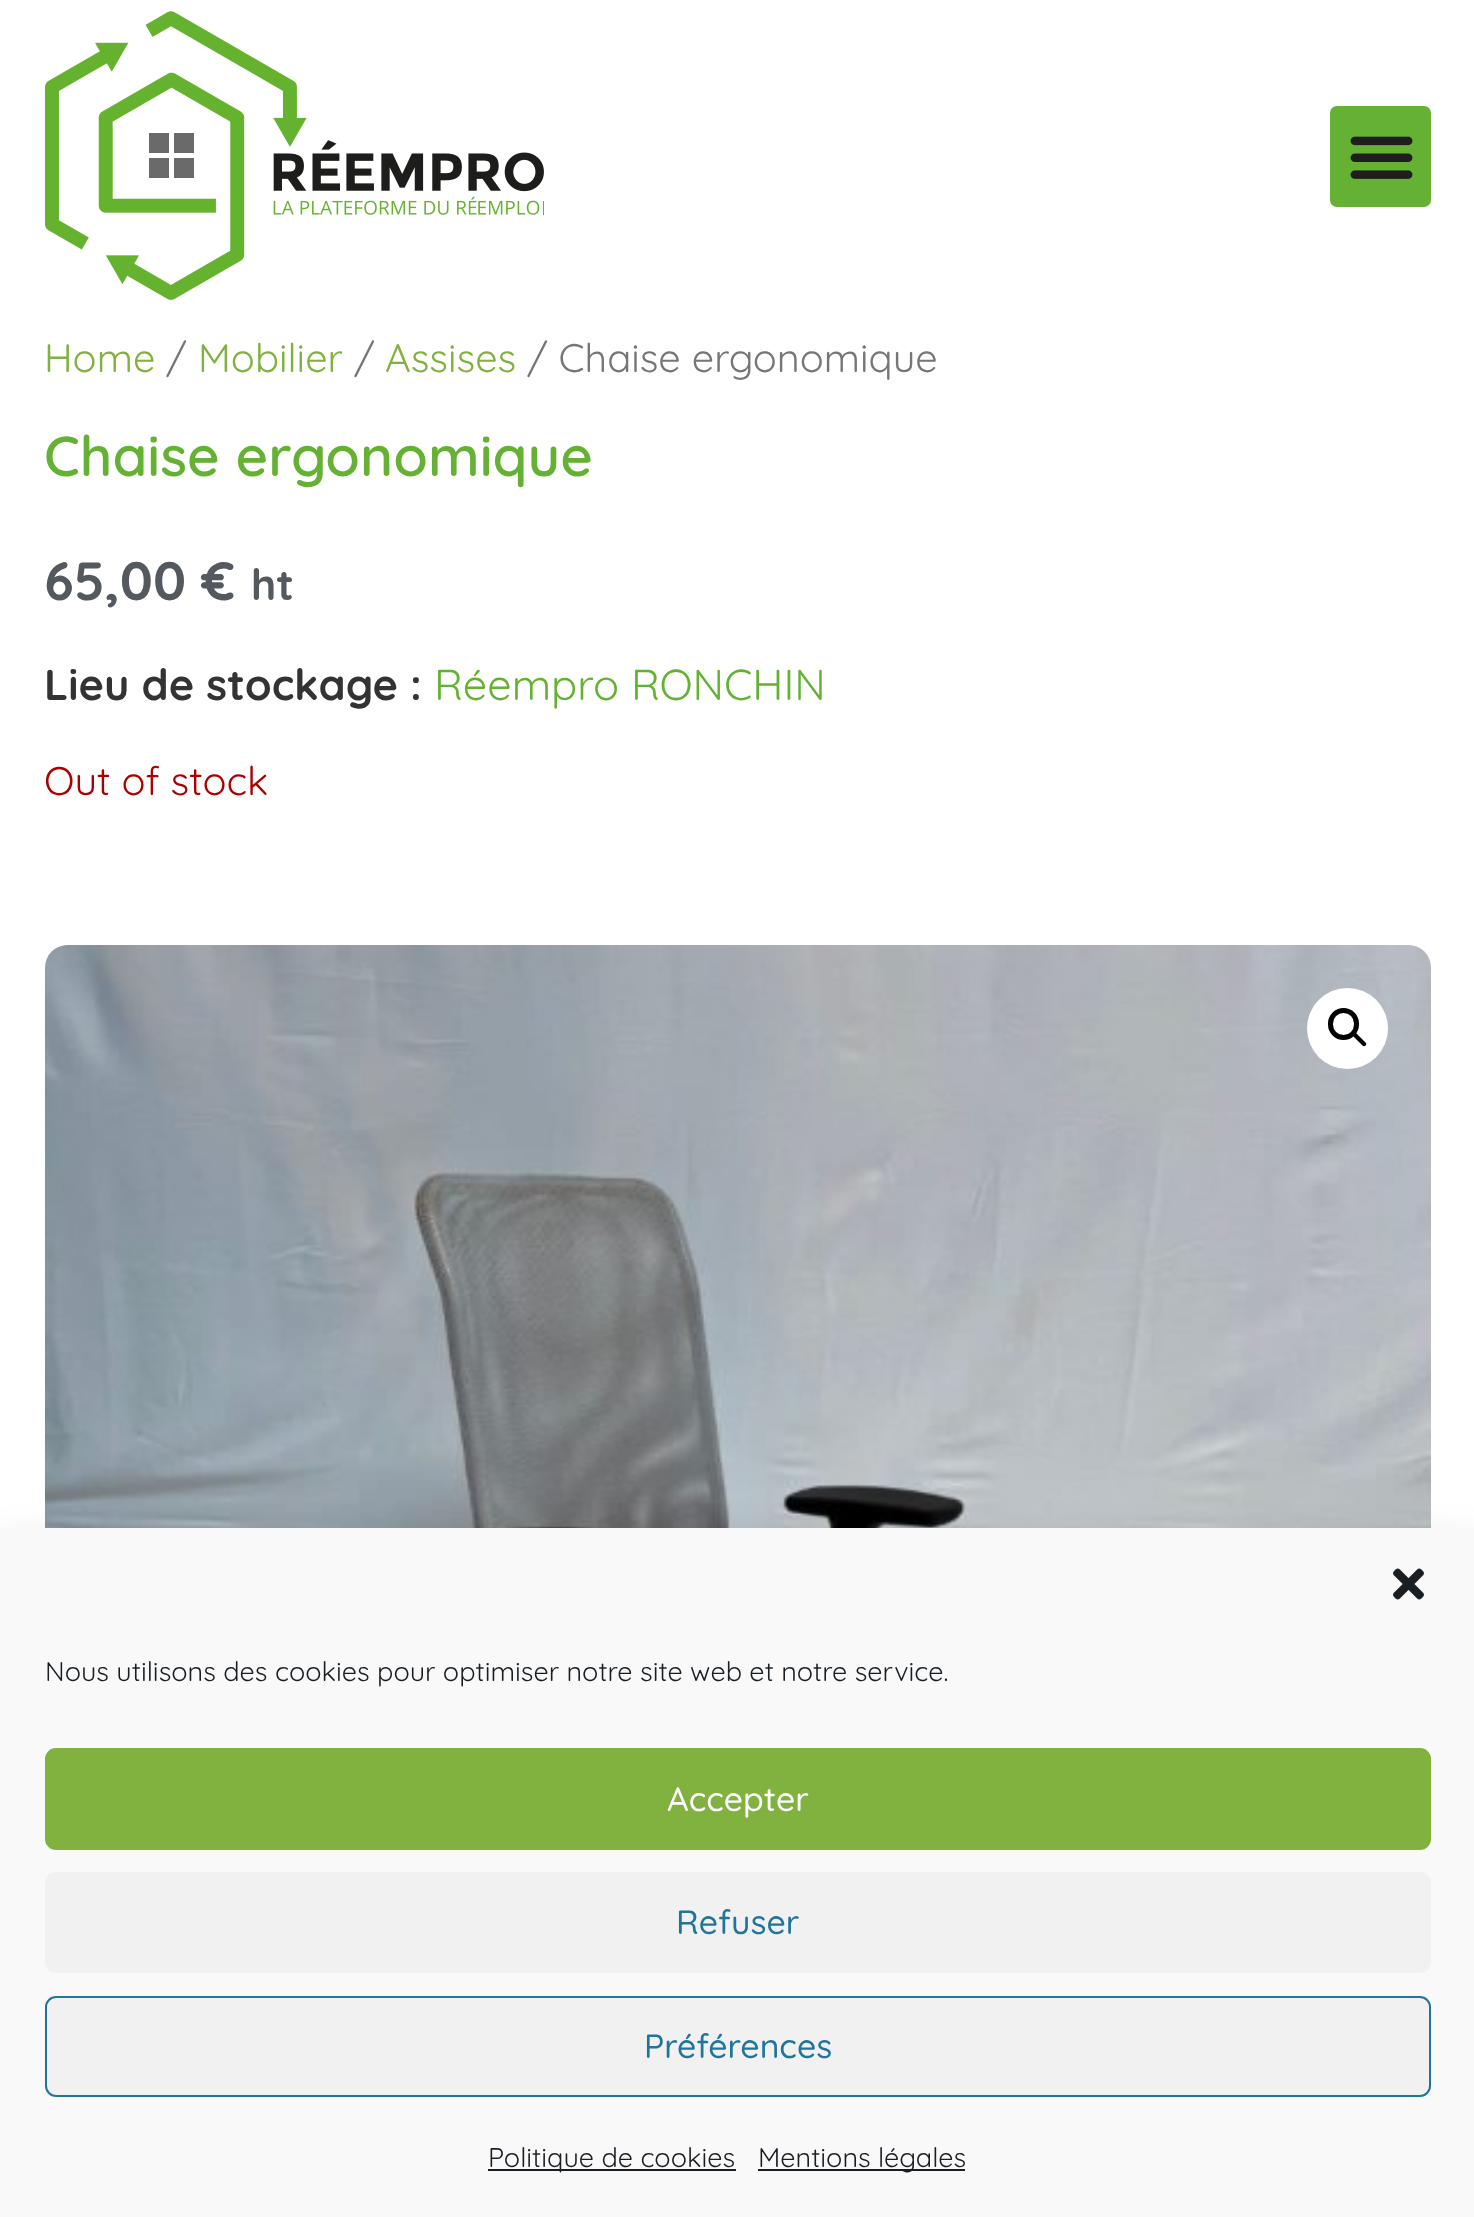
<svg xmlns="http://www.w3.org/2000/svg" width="1474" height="2217">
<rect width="100%" height="100%" fill="#fff"/>
<image x="45" y="11" width="499" height="289" href="media/1.png"/>
<rect x="1330" y="106" width="101" height="101" rx="7" fill="#64b133"/>
<image x="1350" y="136" width="63" height="43" href="media/2.png"/>
<text x="44" y="372" style="font-family:Quicksand;font-size:39.75px;fill:#81b13e">Home</text>
<text x="166" y="372" style="font-family:Quicksand;font-size:39.75px;fill:#767676">/</text>
<text x="198" y="372" style="font-family:Quicksand;font-size:39.75px;fill:#81b13e">Mobilier</text>
<text x="354" y="372" style="font-family:Quicksand;font-size:39.75px;fill:#767676">/</text>
<text x="385" y="372" style="font-family:Quicksand;font-size:39.75px;fill:#81b13e">Assises</text>
<text x="527" y="372" style="font-family:Quicksand;font-size:39.75px;fill:#767676">/ Chaise ergonomique</text>
<text x="44" y="476" style="font-family:Quicksand;font-size:56.25px;font-weight:600;fill:#64b133">Chaise ergonomique</text>
<text x="44" y="600" style="font-family:Quicksand;font-size:54px;font-weight:bold;fill:#54595f">65,00 €</text>
<text x="251" y="600" style="font-family:Quicksand;font-size:43.25px;font-weight:bold;fill:#54595f">ht</text>
<text x="44" y="700" style="font-family:Quicksand;font-size:43.25px;font-weight:bold;fill:#333">Lieu de stockage :</text>
<text x="434" y="700" style="font-family:Quicksand;font-size:43.25px;fill:#64b133">Réempro RONCHIN</text>
<text x="44" y="795" style="font-family:Quicksand;font-size:39.75px;fill:#a00">Out of stock</text>
<image x="45" y="945" width="1386" height="583" href="media/3.png"/>
<circle cx="1347.5" cy="1028.5" r="40.5" fill="#fff"/>
<rect x="1330.5" y="1010.5" width="26" height="27" rx="13" fill="none" stroke="#000" stroke-width="5"/>
<path d="M1353 1033c1-1 2.5-1 3 0l9.5 9.5c1 1 1 2 0 3c-.5 1-2 1-3 0l-9.5-9.5c-1-1-1-2 0-3z" fill="#000"/>
<rect y="1550" width="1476" height="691" fill="#00000030" filter="blur(22.5px)"/>
<rect y="1529" width="1474" height="688" fill="#f9f9f9"/>
<image x="1393" y="1568" width="31" height="32" href="media/4.png"/>
<text x="45" y="1681" style="font-family:Quicksand;font-size:27px;fill:#191e23">Nous utilisons des cookies pour optimiser notre site web et notre service.</text>
<rect x="46" y="1749" width="1384" height="100" rx="10" fill="#81b13e" stroke="#81b13e" stroke-width="2"/>
<text x="667" y="1811" style="font-family:Quicksand;font-size:33.75px;font-weight:500;fill:#fff">Accepter</text>
<rect x="45" y="1872" width="1386" height="101" rx="11" fill="#f1f1f1"/>
<text x="676" y="1934" style="font-family:Quicksand;font-size:33.75px;font-weight:500;fill:#21759b">Refuser</text>
<rect x="46" y="1997" width="1384" height="99" rx="10" fill="#f1f1f1" stroke="#21759b" stroke-width="2"/>
<text x="644" y="2058" style="font-family:Quicksand;font-size:33.75px;font-weight:500;fill:#21759b">Préférences</text>
<rect x="488" y="2169" width="248" height="2" fill="#191e23"/>
<text x="488" y="2167" style="font-family:Quicksand;font-size:27px;fill:#191e23">Politique de cookies</text>
<rect x="758" y="2169" width="207" height="2" fill="#191e23"/>
<text x="758" y="2167" style="font-family:Quicksand;font-size:27px;fill:#191e23">Mentions légales</text>
</svg>
